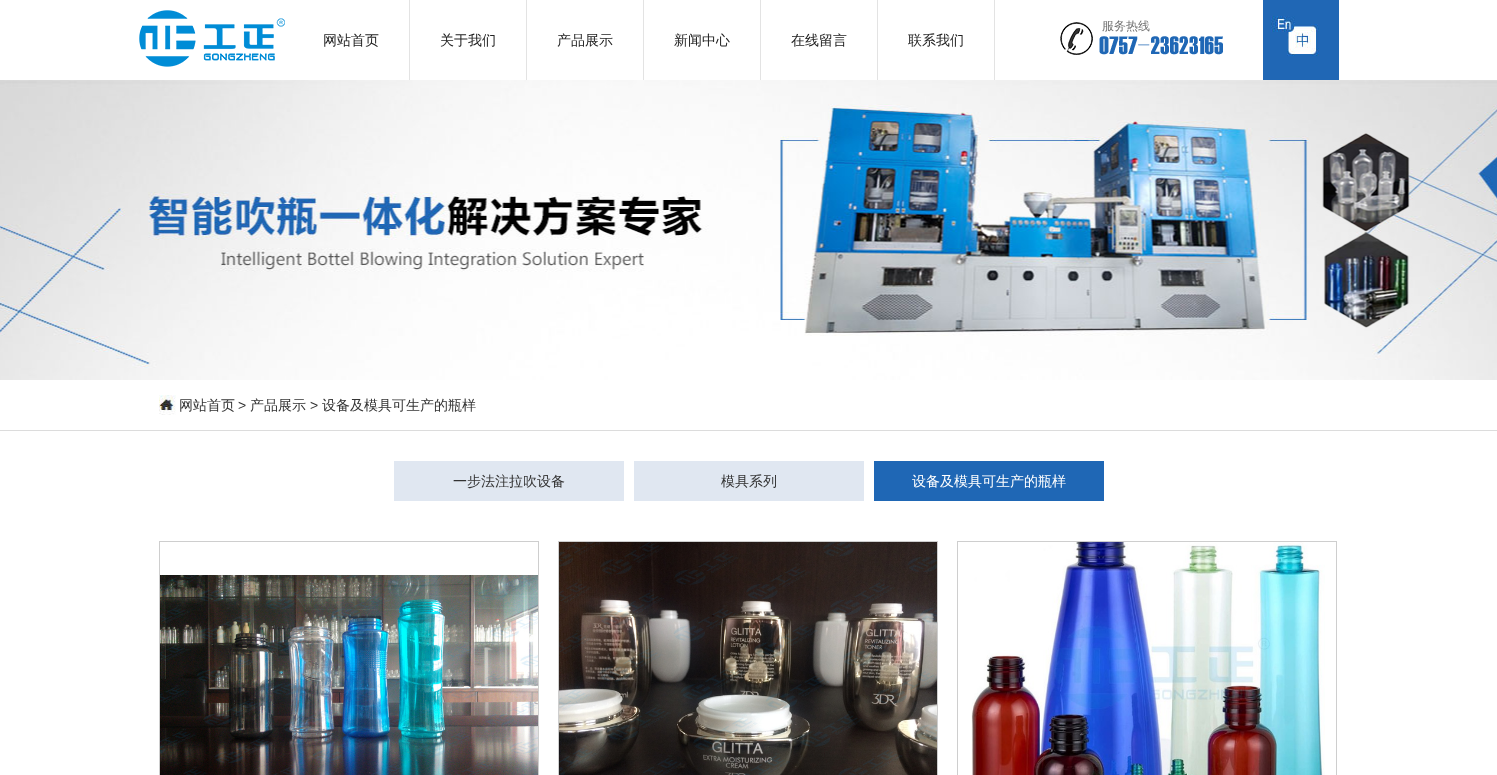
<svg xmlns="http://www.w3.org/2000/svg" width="1497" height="775">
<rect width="100%" height="100%" fill="#fff"/>
<image x="139" y="10" width="146" height="57" href="media/1.png"/>
<image x="1060" y="22" width="163" height="33" href="media/2.png"/>
<text x="1102" y="30" style="font-family:WenQuanYi Zen Hei;font-size:12px;font-weight:500;fill:#707070">服务热线</text>
<image x="1263" y="0" width="76" height="80" href="media/3.png"/>
<rect x="409" width="1" height="80" fill="#e3e3e3"/>
<text x="323" y="45" style="font-family:WenQuanYi Zen Hei;font-size:14px;font-weight:500;fill:#222">网站首页</text>
<rect x="526" width="1" height="80" fill="#e3e3e3"/>
<text x="440" y="45" style="font-family:WenQuanYi Zen Hei;font-size:14px;font-weight:500;fill:#222">关于我们</text>
<rect x="643" width="1" height="80" fill="#e3e3e3"/>
<text x="557" y="45" style="font-family:WenQuanYi Zen Hei;font-size:14px;font-weight:500;fill:#222">产品展示</text>
<rect x="760" width="1" height="80" fill="#e3e3e3"/>
<text x="674" y="45" style="font-family:WenQuanYi Zen Hei;font-size:14px;font-weight:500;fill:#222">新闻中心</text>
<rect x="877" width="1" height="80" fill="#e3e3e3"/>
<text x="791" y="45" style="font-family:WenQuanYi Zen Hei;font-size:14px;font-weight:500;fill:#222">在线留言</text>
<rect x="994" width="1" height="80" fill="#e3e3e3"/>
<text x="908" y="45" style="font-family:WenQuanYi Zen Hei;font-size:14px;font-weight:500;fill:#222">联系我们</text>
<image x="0" y="80" width="1497" height="300" href="media/4.png"/>
<image x="159" y="395" width="17" height="20" href="media/5.png"/>
<text x="179" y="410" style="font-family:WenQuanYi Zen Hei;font-size:14px;font-weight:500;fill:#333">网站首页</text>
<text x="238" y="410" style="font-family:Liberation Sans;font-size:14px;fill:#333">&gt;</text>
<text x="250" y="410" style="font-family:WenQuanYi Zen Hei;font-size:14px;font-weight:500;fill:#333">产品展示</text>
<text x="310" y="410" style="font-family:Liberation Sans;font-size:14px;fill:#333">&gt;</text>
<text x="322" y="410" style="font-family:WenQuanYi Zen Hei;font-size:14px;font-weight:500;fill:#333">设备及模具可生产的瓶样</text>
<rect y="430" width="1497" height="1" fill="#dcdcdc"/>
<rect x="394" y="461" width="230" height="40" fill="#e0e7f1"/>
<text x="453" y="486" style="font-family:WenQuanYi Zen Hei;font-size:14px;font-weight:500;fill:#333">一步法注拉吹设备</text>
<rect x="634" y="461" width="230" height="40" fill="#e0e7f1"/>
<text x="721" y="486" style="font-family:WenQuanYi Zen Hei;font-size:14px;font-weight:500;fill:#333">模具系列</text>
<rect x="874" y="461" width="230" height="40" fill="#1f67b5"/>
<text x="912" y="486" style="font-family:WenQuanYi Zen Hei;font-size:14px;font-weight:500;fill:#fff">设备及模具可生产的瓶样</text>
<rect x="159.5" y="541.5" width="379" height="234" fill="none" stroke="#cecece"/>
<image x="160" y="575" width="378" height="200" href="media/6.png"/>
<rect x="558.5" y="541.5" width="379" height="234" fill="none" stroke="#cecece"/>
<image x="559" y="542" width="378" height="233" href="media/7.png"/>
<rect x="957.5" y="541.5" width="379" height="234" fill="none" stroke="#cecece"/>
<image x="971" y="542" width="354" height="233" href="media/8.png"/>
</svg>
